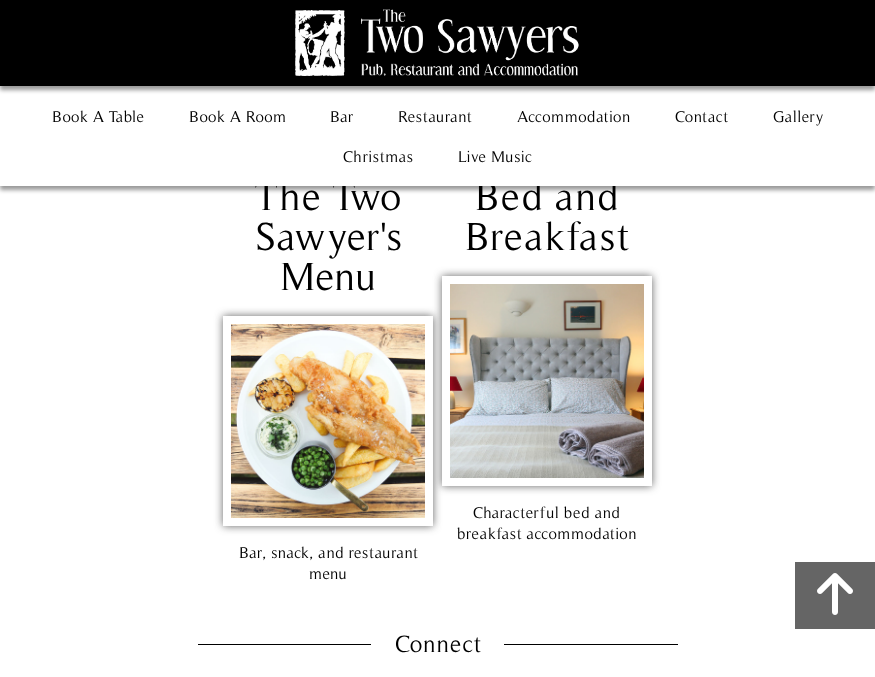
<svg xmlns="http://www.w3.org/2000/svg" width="875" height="677">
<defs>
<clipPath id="clip1"><path d="M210 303h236v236h-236zm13 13h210v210h-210z" clip-rule="evenodd"/></clipPath>
<clipPath id="clip2"><path d="M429 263h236v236h-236zm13 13h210v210h-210z" clip-rule="evenodd"/></clipPath>
</defs>
<rect width="100%" height="100%" fill="#fff"/>
<rect y="4" width="875" height="186" fill="#00000066" filter="blur(2px)"/>
<text x="255" y="210" style="font-family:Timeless;font-size:40px;fill:#000">The Two</text>
<text x="475" y="210" style="font-family:Timeless;font-size:40px;fill:#000">Bed and</text>
<rect y="86" width="875" height="100" fill="#fff"/>
<rect y="4" width="875" height="86" fill="#00000066" filter="blur(2px)"/>
<rect width="875" height="86" fill="#000"/>
<image x="295" y="9" width="284" height="67" href="media/1.png"/>
<text x="52" y="122" style="font-family:Timeless;font-size:16px;fill:#000">Book A Table</text>
<text x="189" y="122" style="font-family:Timeless;font-size:16px;fill:#000">Book A Room</text>
<text x="330" y="122" style="font-family:Timeless;font-size:16px;fill:#000">Bar</text>
<text x="398" y="122" style="font-family:Timeless;font-size:16px;fill:#000">Restaurant</text>
<text x="517" y="122" style="font-family:Timeless;font-size:16px;fill:#000">Accommodation</text>
<text x="675" y="122" style="font-family:Timeless;font-size:16px;fill:#000">Contact</text>
<text x="773" y="122" style="font-family:Timeless;font-size:16px;fill:#000">Gallery</text>
<text x="343" y="162" style="font-family:Timeless;font-size:16px;fill:#000">Christmas</text>
<text x="458" y="162" style="font-family:Timeless;font-size:16px;fill:#000">Live Music</text>
<text x="255" y="250" style="font-family:Timeless;font-size:40px;fill:#000">Sawyer's</text>
<text x="280" y="290" style="font-family:Timeless;font-size:40px;fill:#000">Menu</text>
<g clip-path="url(#clip1)">
<rect x="223" y="316" width="210" height="210" fill="#323232bf" filter="blur(4px)"/>
</g>
<image x="231" y="324" width="194" height="194" href="media/2.png"/>
<text x="239" y="558" style="font-family:Timeless;font-size:16px;fill:#000">Bar, snack, and restaurant</text>
<text x="309" y="579" style="font-family:Timeless;font-size:16px;fill:#000">menu</text>
<text x="465" y="250" style="font-family:Timeless;font-size:40px;fill:#000">Breakfast</text>
<g clip-path="url(#clip2)">
<rect x="442" y="276" width="210" height="210" fill="#323232bf" filter="blur(4px)"/>
</g>
<image x="450" y="284" width="194" height="194" href="media/3.png"/>
<text x="473" y="518" style="font-family:Timeless;font-size:16px;fill:#000">Characterful bed and</text>
<text x="457" y="539" style="font-family:Timeless;font-size:16px;fill:#000">breakfast accommodation</text>
<rect x="795" y="562" width="80" height="67" fill="#656565"/>
<image x="817" y="573" width="36" height="42" href="media/4.png"/>
<rect x="198" y="644" width="480" height="1" fill="#000"/>
<rect x="371" y="644" width="133" height="1" fill="#fff"/>
<text x="395" y="652" style="font-family:Timeless;font-size:24px;fill:#000">Connect</text>
</svg>
